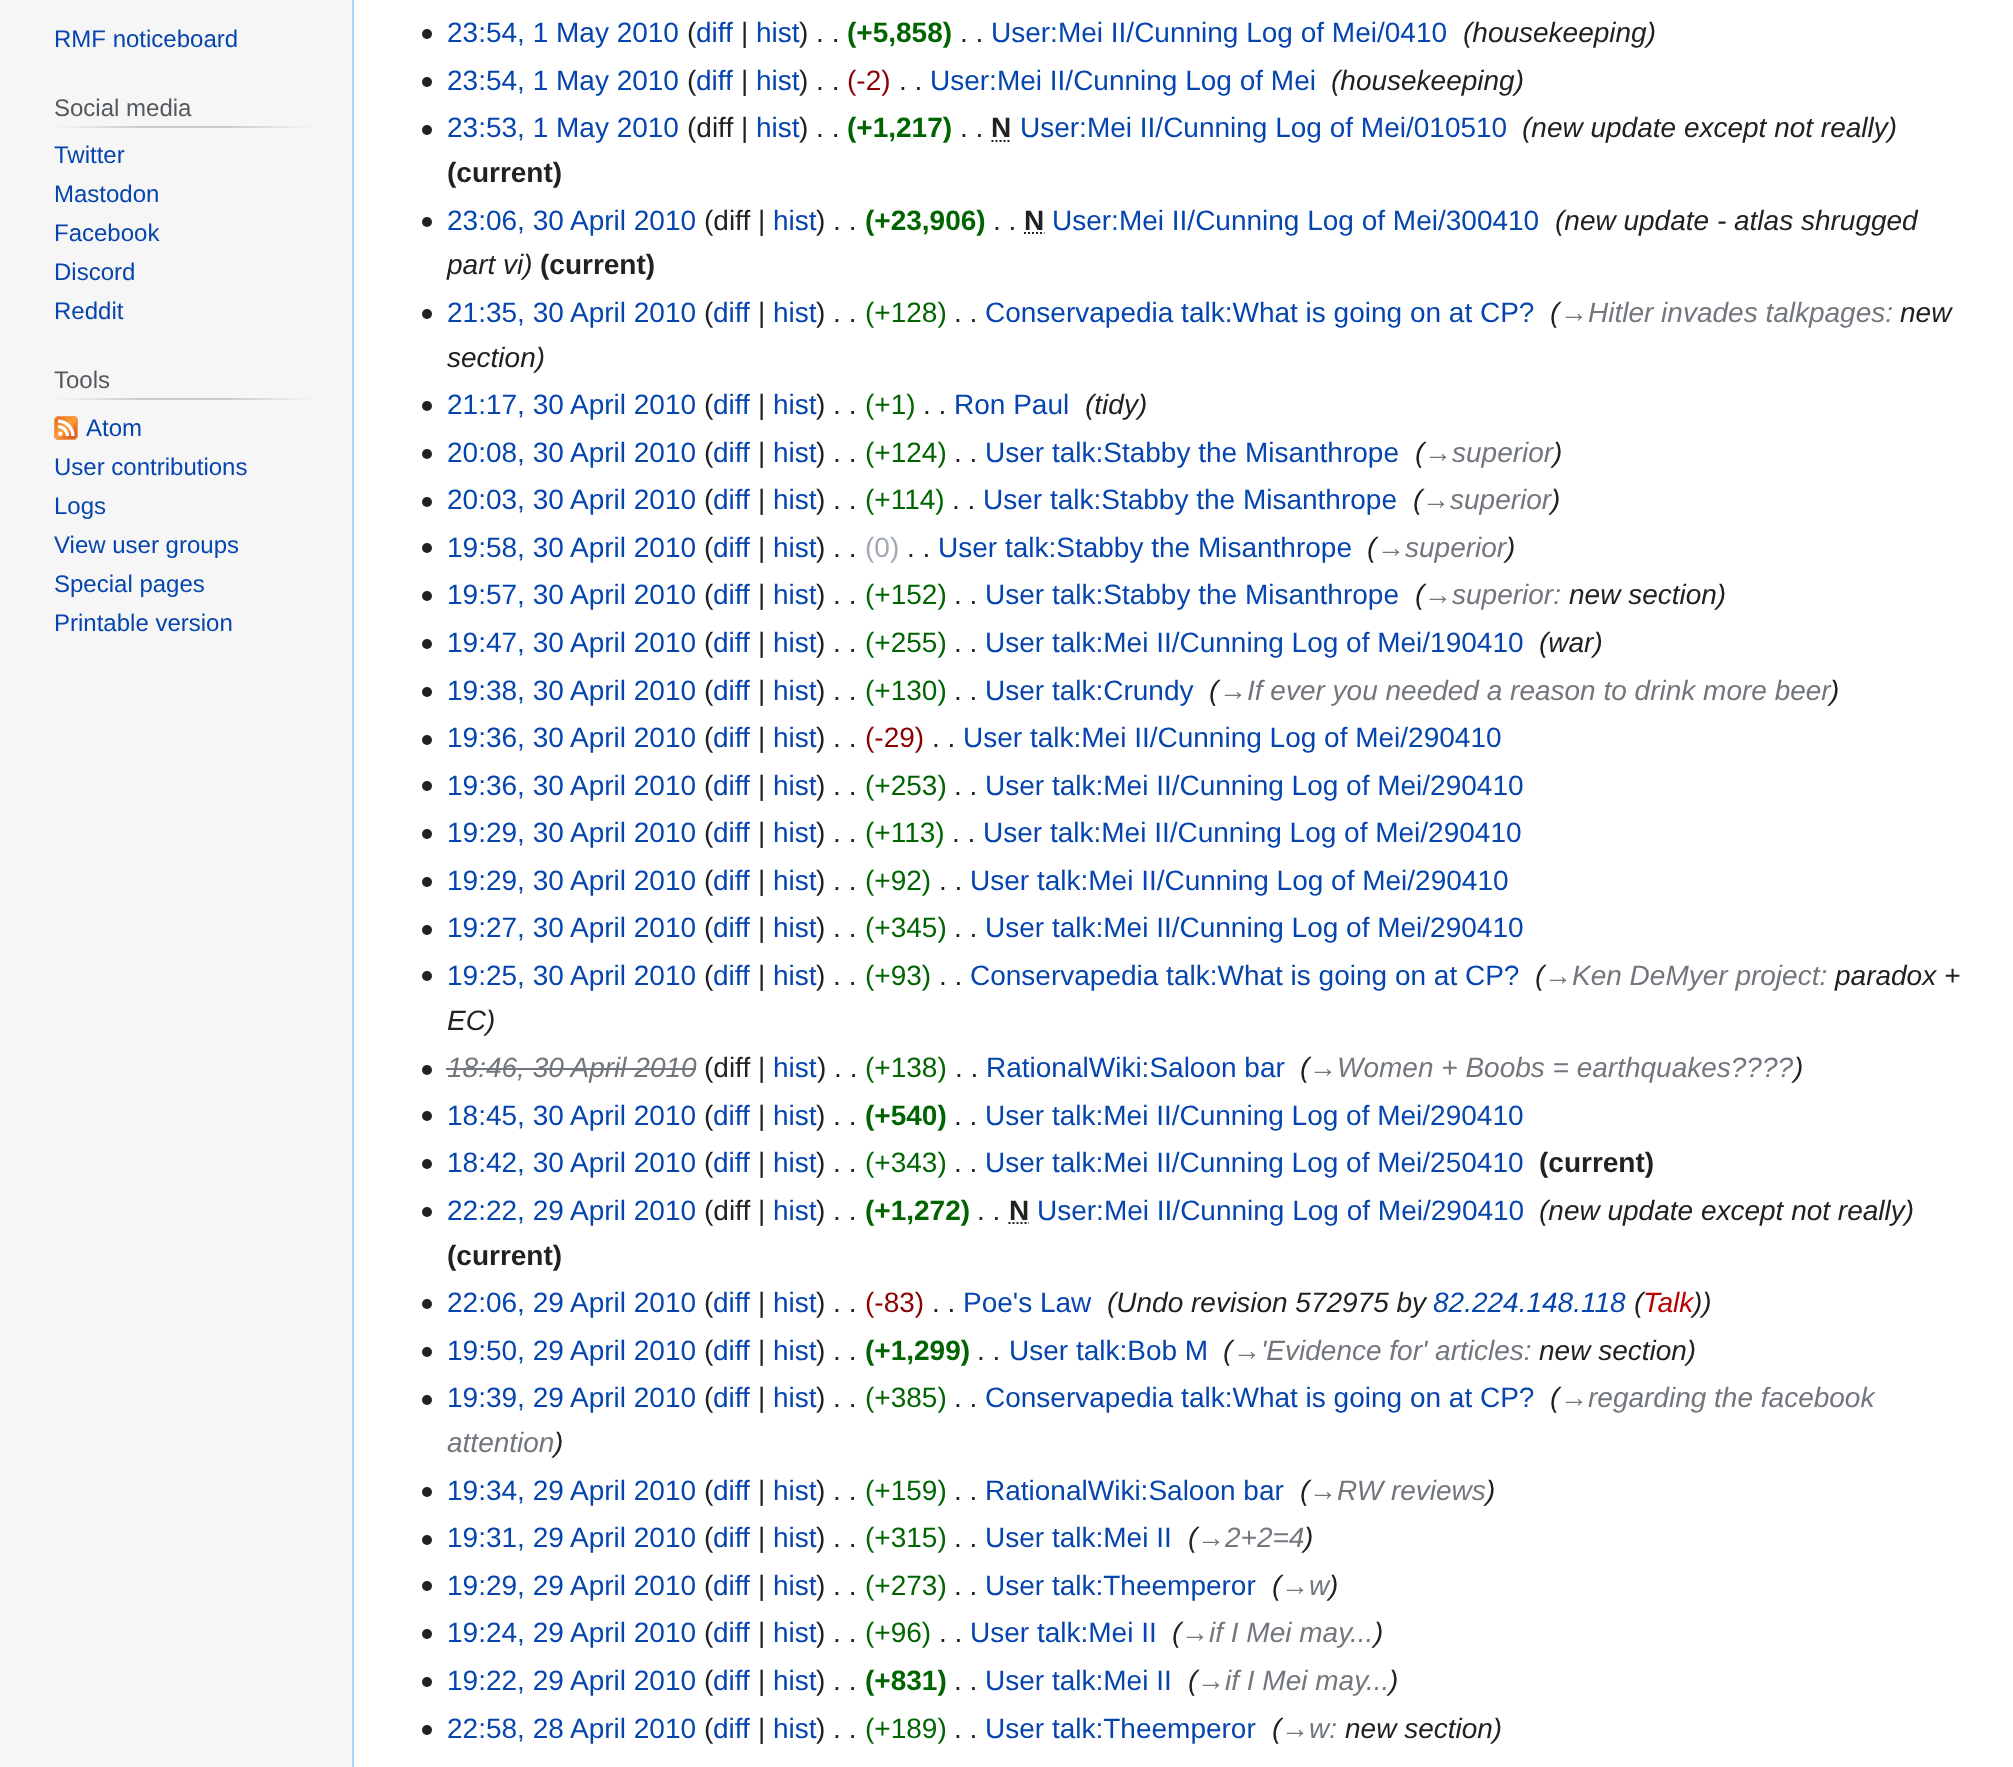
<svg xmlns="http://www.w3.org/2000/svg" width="2013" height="1767">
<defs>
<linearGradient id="g1" gradientUnits="userSpaceOnUse" x1="54" y1="127" x2="316" y2="127"><stop offset="0" stop-color="#f6f6f6"/><stop offset="0.33" stop-color="#c8ccd1"/><stop offset="0.66" stop-color="#c8ccd1"/><stop offset="1" stop-color="#f6f6f6"/></linearGradient>
<linearGradient id="g2" gradientUnits="userSpaceOnUse" x1="54" y1="399" x2="316" y2="399"><stop offset="0" stop-color="#f6f6f6"/><stop offset="0.33" stop-color="#c8ccd1"/><stop offset="0.66" stop-color="#c8ccd1"/><stop offset="1" stop-color="#f6f6f6"/></linearGradient>
</defs>
<rect width="100%" height="100%" fill="#f6f6f6"/>
<text x="54" y="47" style="font-family:Liberation Sans;font-size:24px;fill:#0645ad">RMF noticeboard</text>
<rect x="54" y="126" width="262" height="2" fill="url(#g1)"/>
<text x="54" y="116" style="font-family:Liberation Sans;font-size:24px;fill:#54595d">Social media</text>
<text x="54" y="163" style="font-family:Liberation Sans;font-size:24px;fill:#0645ad">Twitter</text>
<text x="54" y="202" style="font-family:Liberation Sans;font-size:24px;fill:#0645ad">Mastodon</text>
<text x="54" y="241" style="font-family:Liberation Sans;font-size:24px;fill:#0645ad">Facebook</text>
<text x="54" y="280" style="font-family:Liberation Sans;font-size:24px;fill:#0645ad">Discord</text>
<text x="54" y="319" style="font-family:Liberation Sans;font-size:24px;fill:#0645ad">Reddit</text>
<rect x="54" y="398" width="262" height="2" fill="url(#g2)"/>
<text x="54" y="388" style="font-family:Liberation Sans;font-size:24px;fill:#54595d">Tools</text>
<image x="54" y="416" width="24" height="24" href="media/1.png"/>
<text x="86" y="436" style="font-family:Liberation Sans;font-size:24px;fill:#0645ad">Atom</text>
<text x="54" y="475" style="font-family:Liberation Sans;font-size:24px;fill:#0645ad">User contributions</text>
<text x="54" y="514" style="font-family:Liberation Sans;font-size:24px;fill:#0645ad">Logs</text>
<text x="54" y="553" style="font-family:Liberation Sans;font-size:24px;fill:#0645ad">View user groups</text>
<text x="54" y="592" style="font-family:Liberation Sans;font-size:24px;fill:#0645ad">Special pages</text>
<text x="54" y="631" style="font-family:Liberation Sans;font-size:24px;fill:#0645ad">Printable version</text>
<rect x="354" width="1659" height="1767" fill="#fff"/>
<rect x="352" width="2" height="1767" fill="#a7d7f9"/>
<image x="422" y="29" width="10" height="10" href="media/2.png"/>
<text x="447" y="42" style="font-family:Liberation Sans;font-size:28px;fill:#0645ad">23:54, 1 May 2010</text>
<text x="687" y="42" style="font-family:Liberation Sans;font-size:28px;fill:#202122">(</text>
<text x="696" y="42" style="font-family:Liberation Sans;font-size:28px;fill:#0645ad">diff</text>
<text x="741" y="42" style="font-family:Liberation Sans;font-size:28px;fill:#202122">|</text>
<text x="756" y="42" style="font-family:Liberation Sans;font-size:28px;fill:#0645ad">hist</text>
<text x="799" y="42" style="font-family:Liberation Sans;font-size:28px;fill:#202122">) . .</text>
<text x="847" y="42" style="font-family:Liberation Sans;font-size:28px;font-weight:bold;fill:#006400">(+5,858)</text>
<text x="960" y="42" style="font-family:Liberation Sans;font-size:28px;fill:#202122">. .</text>
<text x="991" y="42" style="font-family:Liberation Sans;font-size:28px;fill:#0645ad">User:Mei II/Cunning Log of Mei/0410</text>
<text x="1463" y="42" style="font-family:Liberation Sans;font-size:28px;font-style:italic;fill:#202122">(housekeeping)</text>
<image x="422" y="77" width="10" height="10" href="media/2.png"/>
<text x="447" y="90" style="font-family:Liberation Sans;font-size:28px;fill:#0645ad">23:54, 1 May 2010</text>
<text x="687" y="90" style="font-family:Liberation Sans;font-size:28px;fill:#202122">(</text>
<text x="696" y="90" style="font-family:Liberation Sans;font-size:28px;fill:#0645ad">diff</text>
<text x="741" y="90" style="font-family:Liberation Sans;font-size:28px;fill:#202122">|</text>
<text x="756" y="90" style="font-family:Liberation Sans;font-size:28px;fill:#0645ad">hist</text>
<text x="799" y="90" style="font-family:Liberation Sans;font-size:28px;fill:#202122">) . .</text>
<text x="847" y="90" style="font-family:Liberation Sans;font-size:28px;fill:#8b0000">(-2)</text>
<text x="899" y="90" style="font-family:Liberation Sans;font-size:28px;fill:#202122">. .</text>
<text x="930" y="90" style="font-family:Liberation Sans;font-size:28px;fill:#0645ad">User:Mei II/Cunning Log of Mei</text>
<text x="1331" y="90" style="font-family:Liberation Sans;font-size:28px;font-style:italic;fill:#202122">(housekeeping)</text>
<image x="422" y="125" width="10" height="10" href="media/2.png"/>
<text x="447" y="137" style="font-family:Liberation Sans;font-size:28px;fill:#0645ad">23:53, 1 May 2010</text>
<text x="687" y="137" style="font-family:Liberation Sans;font-size:28px;fill:#202122">(diff |</text>
<text x="756" y="137" style="font-family:Liberation Sans;font-size:28px;fill:#0645ad">hist</text>
<text x="799" y="137" style="font-family:Liberation Sans;font-size:28px;fill:#202122">) . .</text>
<text x="847" y="137" style="font-family:Liberation Sans;font-size:28px;font-weight:bold;fill:#006400">(+1,217)</text>
<text x="960" y="137" style="font-family:Liberation Sans;font-size:28px;fill:#202122">. .</text>
<text x="991" y="137" style="font-family:Liberation Sans;font-size:28px;font-weight:bold;fill:#202122">N</text>
<path d="M991.5 141h20" fill="none" stroke="#202122" stroke-width="2" stroke-dasharray="2 2"/>
<text x="1020" y="137" style="font-family:Liberation Sans;font-size:28px;fill:#0645ad">User:Mei II/Cunning Log of Mei/010510</text>
<text x="1522" y="137" style="font-family:Liberation Sans;font-size:28px;font-style:italic;fill:#202122">(new update except not really)</text>
<text x="447" y="182" style="font-family:Liberation Sans;font-size:28px;font-weight:bold;fill:#202122">(current)</text>
<image x="422" y="217" width="10" height="10" href="media/2.png"/>
<text x="447" y="230" style="font-family:Liberation Sans;font-size:28px;fill:#0645ad">23:06, 30 April 2010</text>
<text x="704" y="230" style="font-family:Liberation Sans;font-size:28px;fill:#202122">(diff |</text>
<text x="773" y="230" style="font-family:Liberation Sans;font-size:28px;fill:#0645ad">hist</text>
<text x="816" y="230" style="font-family:Liberation Sans;font-size:28px;fill:#202122">) . .</text>
<text x="865" y="230" style="font-family:Liberation Sans;font-size:28px;font-weight:bold;fill:#006400">(+23,906)</text>
<text x="993" y="230" style="font-family:Liberation Sans;font-size:28px;fill:#202122">. .</text>
<text x="1024" y="230" style="font-family:Liberation Sans;font-size:28px;font-weight:bold;fill:#202122">N</text>
<path d="M1024 233h20.5" fill="none" stroke="#202122" stroke-width="2" stroke-dasharray="2 2"/>
<text x="1052" y="230" style="font-family:Liberation Sans;font-size:28px;fill:#0645ad">User:Mei II/Cunning Log of Mei/300410</text>
<text x="1555" y="230" style="font-family:Liberation Sans;font-size:28px;font-style:italic;fill:#202122">(new update - atlas shrugged</text>
<text x="447" y="274" style="font-family:Liberation Sans;font-size:28px;font-style:italic;fill:#202122">part vi)</text>
<text x="540" y="274" style="font-family:Liberation Sans;font-size:28px;font-weight:bold;fill:#202122">(current)</text>
<image x="422" y="309" width="10" height="10" href="media/2.png"/>
<text x="447" y="322" style="font-family:Liberation Sans;font-size:28px;fill:#0645ad">21:35, 30 April 2010</text>
<text x="704" y="322" style="font-family:Liberation Sans;font-size:28px;fill:#202122">(</text>
<text x="713" y="322" style="font-family:Liberation Sans;font-size:28px;fill:#0645ad">diff</text>
<text x="758" y="322" style="font-family:Liberation Sans;font-size:28px;fill:#202122">|</text>
<text x="773" y="322" style="font-family:Liberation Sans;font-size:28px;fill:#0645ad">hist</text>
<text x="816" y="322" style="font-family:Liberation Sans;font-size:28px;fill:#202122">) . .</text>
<text x="865" y="322" style="font-family:Liberation Sans;font-size:28px;fill:#006400">(+128)</text>
<text x="954" y="322" style="font-family:Liberation Sans;font-size:28px;fill:#202122">. .</text>
<text x="985" y="322" style="font-family:Liberation Sans;font-size:28px;fill:#0645ad">Conservapedia talk:What is going on at CP?</text>
<text x="1550" y="322" style="font-family:Liberation Sans;font-size:28px;font-style:italic;fill:#202122">(</text>
<text x="1560" y="322" style="font-family:Liberation Sans;font-size:28px;font-style:italic;fill:#72777d">→Hitler invades talkpages:</text>
<text x="1900" y="322" style="font-family:Liberation Sans;font-size:28px;font-style:italic;fill:#202122">new</text>
<text x="447" y="367" style="font-family:Liberation Sans;font-size:28px;font-style:italic;fill:#202122">section)</text>
<image x="422" y="401" width="10" height="10" href="media/2.png"/>
<text x="447" y="414" style="font-family:Liberation Sans;font-size:28px;fill:#0645ad">21:17, 30 April 2010</text>
<text x="704" y="414" style="font-family:Liberation Sans;font-size:28px;fill:#202122">(</text>
<text x="713" y="414" style="font-family:Liberation Sans;font-size:28px;fill:#0645ad">diff</text>
<text x="758" y="414" style="font-family:Liberation Sans;font-size:28px;fill:#202122">|</text>
<text x="773" y="414" style="font-family:Liberation Sans;font-size:28px;fill:#0645ad">hist</text>
<text x="816" y="414" style="font-family:Liberation Sans;font-size:28px;fill:#202122">) . .</text>
<text x="865" y="414" style="font-family:Liberation Sans;font-size:28px;fill:#006400">(+1)</text>
<text x="923" y="414" style="font-family:Liberation Sans;font-size:28px;fill:#202122">. .</text>
<text x="954" y="414" style="font-family:Liberation Sans;font-size:28px;fill:#0645ad">Ron Paul</text>
<text x="1085" y="414" style="font-family:Liberation Sans;font-size:28px;font-style:italic;fill:#202122">(tidy)</text>
<image x="422" y="449" width="10" height="10" href="media/2.png"/>
<text x="447" y="462" style="font-family:Liberation Sans;font-size:28px;fill:#0645ad">20:08, 30 April 2010</text>
<text x="704" y="462" style="font-family:Liberation Sans;font-size:28px;fill:#202122">(</text>
<text x="713" y="462" style="font-family:Liberation Sans;font-size:28px;fill:#0645ad">diff</text>
<text x="758" y="462" style="font-family:Liberation Sans;font-size:28px;fill:#202122">|</text>
<text x="773" y="462" style="font-family:Liberation Sans;font-size:28px;fill:#0645ad">hist</text>
<text x="816" y="462" style="font-family:Liberation Sans;font-size:28px;fill:#202122">) . .</text>
<text x="865" y="462" style="font-family:Liberation Sans;font-size:28px;fill:#006400">(+124)</text>
<text x="954" y="462" style="font-family:Liberation Sans;font-size:28px;fill:#202122">. .</text>
<text x="985" y="462" style="font-family:Liberation Sans;font-size:28px;fill:#0645ad">User talk:Stabby the Misanthrope</text>
<text x="1415" y="462" style="font-family:Liberation Sans;font-size:28px;font-style:italic;fill:#202122">(</text>
<text x="1424" y="462" style="font-family:Liberation Sans;font-size:28px;font-style:italic;fill:#72777d">→superior</text>
<text x="1553" y="462" style="font-family:Liberation Sans;font-size:28px;font-style:italic;fill:#202122">)</text>
<image x="422" y="497" width="10" height="10" href="media/2.png"/>
<text x="447" y="509" style="font-family:Liberation Sans;font-size:28px;fill:#0645ad">20:03, 30 April 2010</text>
<text x="704" y="509" style="font-family:Liberation Sans;font-size:28px;fill:#202122">(</text>
<text x="713" y="509" style="font-family:Liberation Sans;font-size:28px;fill:#0645ad">diff</text>
<text x="758" y="509" style="font-family:Liberation Sans;font-size:28px;fill:#202122">|</text>
<text x="773" y="509" style="font-family:Liberation Sans;font-size:28px;fill:#0645ad">hist</text>
<text x="816" y="509" style="font-family:Liberation Sans;font-size:28px;fill:#202122">) . .</text>
<text x="865" y="509" style="font-family:Liberation Sans;font-size:28px;fill:#006400">(+114)</text>
<text x="952" y="509" style="font-family:Liberation Sans;font-size:28px;fill:#202122">. .</text>
<text x="983" y="509" style="font-family:Liberation Sans;font-size:28px;fill:#0645ad">User talk:Stabby the Misanthrope</text>
<text x="1413" y="509" style="font-family:Liberation Sans;font-size:28px;font-style:italic;fill:#202122">(</text>
<text x="1422" y="509" style="font-family:Liberation Sans;font-size:28px;font-style:italic;fill:#72777d">→superior</text>
<text x="1551" y="509" style="font-family:Liberation Sans;font-size:28px;font-style:italic;fill:#202122">)</text>
<image x="422" y="543" width="10" height="10" href="media/2.png"/>
<text x="447" y="557" style="font-family:Liberation Sans;font-size:28px;fill:#0645ad">19:58, 30 April 2010</text>
<text x="704" y="557" style="font-family:Liberation Sans;font-size:28px;fill:#202122">(</text>
<text x="713" y="557" style="font-family:Liberation Sans;font-size:28px;fill:#0645ad">diff</text>
<text x="758" y="557" style="font-family:Liberation Sans;font-size:28px;fill:#202122">|</text>
<text x="773" y="557" style="font-family:Liberation Sans;font-size:28px;fill:#0645ad">hist</text>
<text x="816" y="557" style="font-family:Liberation Sans;font-size:28px;fill:#202122">) . .</text>
<text x="865" y="557" style="font-family:Liberation Sans;font-size:28px;fill:#a2a9b1">(0)</text>
<text x="907" y="557" style="font-family:Liberation Sans;font-size:28px;fill:#202122">. .</text>
<text x="938" y="557" style="font-family:Liberation Sans;font-size:28px;fill:#0645ad">User talk:Stabby the Misanthrope</text>
<text x="1367" y="557" style="font-family:Liberation Sans;font-size:28px;font-style:italic;fill:#202122">(</text>
<text x="1377" y="557" style="font-family:Liberation Sans;font-size:28px;font-style:italic;fill:#72777d">→superior</text>
<text x="1506" y="557" style="font-family:Liberation Sans;font-size:28px;font-style:italic;fill:#202122">)</text>
<image x="422" y="591" width="10" height="10" href="media/2.png"/>
<text x="447" y="604" style="font-family:Liberation Sans;font-size:28px;fill:#0645ad">19:57, 30 April 2010</text>
<text x="704" y="604" style="font-family:Liberation Sans;font-size:28px;fill:#202122">(</text>
<text x="713" y="604" style="font-family:Liberation Sans;font-size:28px;fill:#0645ad">diff</text>
<text x="758" y="604" style="font-family:Liberation Sans;font-size:28px;fill:#202122">|</text>
<text x="773" y="604" style="font-family:Liberation Sans;font-size:28px;fill:#0645ad">hist</text>
<text x="816" y="604" style="font-family:Liberation Sans;font-size:28px;fill:#202122">) . .</text>
<text x="865" y="604" style="font-family:Liberation Sans;font-size:28px;fill:#006400">(+152)</text>
<text x="954" y="604" style="font-family:Liberation Sans;font-size:28px;fill:#202122">. .</text>
<text x="985" y="604" style="font-family:Liberation Sans;font-size:28px;fill:#0645ad">User talk:Stabby the Misanthrope</text>
<text x="1415" y="604" style="font-family:Liberation Sans;font-size:28px;font-style:italic;fill:#202122">(</text>
<text x="1424" y="604" style="font-family:Liberation Sans;font-size:28px;font-style:italic;fill:#72777d">→superior:</text>
<text x="1569" y="604" style="font-family:Liberation Sans;font-size:28px;font-style:italic;fill:#202122">new section)</text>
<image x="422" y="639" width="10" height="10" href="media/2.png"/>
<text x="447" y="652" style="font-family:Liberation Sans;font-size:28px;fill:#0645ad">19:47, 30 April 2010</text>
<text x="704" y="652" style="font-family:Liberation Sans;font-size:28px;fill:#202122">(</text>
<text x="713" y="652" style="font-family:Liberation Sans;font-size:28px;fill:#0645ad">diff</text>
<text x="758" y="652" style="font-family:Liberation Sans;font-size:28px;fill:#202122">|</text>
<text x="773" y="652" style="font-family:Liberation Sans;font-size:28px;fill:#0645ad">hist</text>
<text x="816" y="652" style="font-family:Liberation Sans;font-size:28px;fill:#202122">) . .</text>
<text x="865" y="652" style="font-family:Liberation Sans;font-size:28px;fill:#006400">(+255)</text>
<text x="954" y="652" style="font-family:Liberation Sans;font-size:28px;fill:#202122">. .</text>
<text x="985" y="652" style="font-family:Liberation Sans;font-size:28px;fill:#0645ad">User talk:Mei II/Cunning Log of Mei/190410</text>
<text x="1539" y="652" style="font-family:Liberation Sans;font-size:28px;font-style:italic;fill:#202122">(war)</text>
<image x="422" y="687" width="10" height="10" href="media/3.png"/>
<text x="447" y="700" style="font-family:Liberation Sans;font-size:28px;fill:#0645ad">19:38, 30 April 2010</text>
<text x="704" y="700" style="font-family:Liberation Sans;font-size:28px;fill:#202122">(</text>
<text x="713" y="700" style="font-family:Liberation Sans;font-size:28px;fill:#0645ad">diff</text>
<text x="758" y="700" style="font-family:Liberation Sans;font-size:28px;fill:#202122">|</text>
<text x="773" y="700" style="font-family:Liberation Sans;font-size:28px;fill:#0645ad">hist</text>
<text x="816" y="700" style="font-family:Liberation Sans;font-size:28px;fill:#202122">) . .</text>
<text x="865" y="700" style="font-family:Liberation Sans;font-size:28px;fill:#006400">(+130)</text>
<text x="954" y="700" style="font-family:Liberation Sans;font-size:28px;fill:#202122">. .</text>
<text x="985" y="700" style="font-family:Liberation Sans;font-size:28px;fill:#0645ad">User talk:Crundy</text>
<text x="1209" y="700" style="font-family:Liberation Sans;font-size:28px;font-style:italic;fill:#202122">(</text>
<text x="1219" y="700" style="font-family:Liberation Sans;font-size:28px;font-style:italic;fill:#72777d">→If ever you needed a reason to drink more beer</text>
<text x="1830" y="700" style="font-family:Liberation Sans;font-size:28px;font-style:italic;fill:#202122">)</text>
<image x="422" y="735" width="10" height="10" href="media/2.png"/>
<text x="447" y="747" style="font-family:Liberation Sans;font-size:28px;fill:#0645ad">19:36, 30 April 2010</text>
<text x="704" y="747" style="font-family:Liberation Sans;font-size:28px;fill:#202122">(</text>
<text x="713" y="747" style="font-family:Liberation Sans;font-size:28px;fill:#0645ad">diff</text>
<text x="758" y="747" style="font-family:Liberation Sans;font-size:28px;fill:#202122">|</text>
<text x="773" y="747" style="font-family:Liberation Sans;font-size:28px;fill:#0645ad">hist</text>
<text x="816" y="747" style="font-family:Liberation Sans;font-size:28px;fill:#202122">) . .</text>
<text x="865" y="747" style="font-family:Liberation Sans;font-size:28px;fill:#8b0000">(-29)</text>
<text x="932" y="747" style="font-family:Liberation Sans;font-size:28px;fill:#202122">. .</text>
<text x="963" y="747" style="font-family:Liberation Sans;font-size:28px;fill:#0645ad">User talk:Mei II/Cunning Log of Mei/290410</text>
<image x="422" y="781" width="10" height="10" href="media/2.png"/>
<text x="447" y="795" style="font-family:Liberation Sans;font-size:28px;fill:#0645ad">19:36, 30 April 2010</text>
<text x="704" y="795" style="font-family:Liberation Sans;font-size:28px;fill:#202122">(</text>
<text x="713" y="795" style="font-family:Liberation Sans;font-size:28px;fill:#0645ad">diff</text>
<text x="758" y="795" style="font-family:Liberation Sans;font-size:28px;fill:#202122">|</text>
<text x="773" y="795" style="font-family:Liberation Sans;font-size:28px;fill:#0645ad">hist</text>
<text x="816" y="795" style="font-family:Liberation Sans;font-size:28px;fill:#202122">) . .</text>
<text x="865" y="795" style="font-family:Liberation Sans;font-size:28px;fill:#006400">(+253)</text>
<text x="954" y="795" style="font-family:Liberation Sans;font-size:28px;fill:#202122">. .</text>
<text x="985" y="795" style="font-family:Liberation Sans;font-size:28px;fill:#0645ad">User talk:Mei II/Cunning Log of Mei/290410</text>
<image x="422" y="829" width="10" height="10" href="media/2.png"/>
<text x="447" y="842" style="font-family:Liberation Sans;font-size:28px;fill:#0645ad">19:29, 30 April 2010</text>
<text x="704" y="842" style="font-family:Liberation Sans;font-size:28px;fill:#202122">(</text>
<text x="713" y="842" style="font-family:Liberation Sans;font-size:28px;fill:#0645ad">diff</text>
<text x="758" y="842" style="font-family:Liberation Sans;font-size:28px;fill:#202122">|</text>
<text x="773" y="842" style="font-family:Liberation Sans;font-size:28px;fill:#0645ad">hist</text>
<text x="816" y="842" style="font-family:Liberation Sans;font-size:28px;fill:#202122">) . .</text>
<text x="865" y="842" style="font-family:Liberation Sans;font-size:28px;fill:#006400">(+113)</text>
<text x="952" y="842" style="font-family:Liberation Sans;font-size:28px;fill:#202122">. .</text>
<text x="983" y="842" style="font-family:Liberation Sans;font-size:28px;fill:#0645ad">User talk:Mei II/Cunning Log of Mei/290410</text>
<image x="422" y="877" width="10" height="10" href="media/2.png"/>
<text x="447" y="890" style="font-family:Liberation Sans;font-size:28px;fill:#0645ad">19:29, 30 April 2010</text>
<text x="704" y="890" style="font-family:Liberation Sans;font-size:28px;fill:#202122">(</text>
<text x="713" y="890" style="font-family:Liberation Sans;font-size:28px;fill:#0645ad">diff</text>
<text x="758" y="890" style="font-family:Liberation Sans;font-size:28px;fill:#202122">|</text>
<text x="773" y="890" style="font-family:Liberation Sans;font-size:28px;fill:#0645ad">hist</text>
<text x="816" y="890" style="font-family:Liberation Sans;font-size:28px;fill:#202122">) . .</text>
<text x="865" y="890" style="font-family:Liberation Sans;font-size:28px;fill:#006400">(+92)</text>
<text x="939" y="890" style="font-family:Liberation Sans;font-size:28px;fill:#202122">. .</text>
<text x="970" y="890" style="font-family:Liberation Sans;font-size:28px;fill:#0645ad">User talk:Mei II/Cunning Log of Mei/290410</text>
<image x="422" y="925" width="10" height="10" href="media/2.png"/>
<text x="447" y="937" style="font-family:Liberation Sans;font-size:28px;fill:#0645ad">19:27, 30 April 2010</text>
<text x="704" y="937" style="font-family:Liberation Sans;font-size:28px;fill:#202122">(</text>
<text x="713" y="937" style="font-family:Liberation Sans;font-size:28px;fill:#0645ad">diff</text>
<text x="758" y="937" style="font-family:Liberation Sans;font-size:28px;fill:#202122">|</text>
<text x="773" y="937" style="font-family:Liberation Sans;font-size:28px;fill:#0645ad">hist</text>
<text x="816" y="937" style="font-family:Liberation Sans;font-size:28px;fill:#202122">) . .</text>
<text x="865" y="937" style="font-family:Liberation Sans;font-size:28px;fill:#006400">(+345)</text>
<text x="954" y="937" style="font-family:Liberation Sans;font-size:28px;fill:#202122">. .</text>
<text x="985" y="937" style="font-family:Liberation Sans;font-size:28px;fill:#0645ad">User talk:Mei II/Cunning Log of Mei/290410</text>
<image x="422" y="971" width="10" height="10" href="media/2.png"/>
<text x="447" y="985" style="font-family:Liberation Sans;font-size:28px;fill:#0645ad">19:25, 30 April 2010</text>
<text x="704" y="985" style="font-family:Liberation Sans;font-size:28px;fill:#202122">(</text>
<text x="713" y="985" style="font-family:Liberation Sans;font-size:28px;fill:#0645ad">diff</text>
<text x="758" y="985" style="font-family:Liberation Sans;font-size:28px;fill:#202122">|</text>
<text x="773" y="985" style="font-family:Liberation Sans;font-size:28px;fill:#0645ad">hist</text>
<text x="816" y="985" style="font-family:Liberation Sans;font-size:28px;fill:#202122">) . .</text>
<text x="865" y="985" style="font-family:Liberation Sans;font-size:28px;fill:#006400">(+93)</text>
<text x="939" y="985" style="font-family:Liberation Sans;font-size:28px;fill:#202122">. .</text>
<text x="970" y="985" style="font-family:Liberation Sans;font-size:28px;fill:#0645ad">Conservapedia talk:What is going on at CP?</text>
<text x="1535" y="985" style="font-family:Liberation Sans;font-size:28px;font-style:italic;fill:#202122">(</text>
<text x="1544" y="985" style="font-family:Liberation Sans;font-size:28px;font-style:italic;fill:#72777d">→Ken DeMyer project:</text>
<text x="1835" y="985" style="font-family:Liberation Sans;font-size:28px;font-style:italic;fill:#202122">paradox +</text>
<text x="447" y="1030" style="font-family:Liberation Sans;font-size:28px;font-style:italic;fill:#202122">EC)</text>
<image x="422" y="1065" width="10" height="10" href="media/2.png"/>
<text x="447" y="1077" style="font-family:Liberation Sans;font-size:28px;font-style:italic;fill:#72777d">18:46, 30 April 2010</text>
<rect x="446" y="1068" width="250" height="2" fill="#72777d"/>
<text x="704" y="1077" style="font-family:Liberation Sans;font-size:28px;fill:#202122">(diff |</text>
<text x="773" y="1077" style="font-family:Liberation Sans;font-size:28px;fill:#0645ad">hist</text>
<text x="817" y="1077" style="font-family:Liberation Sans;font-size:28px;fill:#202122">) . .</text>
<text x="865" y="1077" style="font-family:Liberation Sans;font-size:28px;fill:#006400">(+138)</text>
<text x="955" y="1077" style="font-family:Liberation Sans;font-size:28px;fill:#202122">. .</text>
<text x="986" y="1077" style="font-family:Liberation Sans;font-size:28px;fill:#0645ad">RationalWiki:Saloon bar</text>
<text x="1300" y="1077" style="font-family:Liberation Sans;font-size:28px;font-style:italic;fill:#202122">(</text>
<text x="1309" y="1077" style="font-family:Liberation Sans;font-size:28px;font-style:italic;fill:#72777d">→Women + Boobs = earthquakes????</text>
<text x="1794" y="1077" style="font-family:Liberation Sans;font-size:28px;font-style:italic;fill:#202122">)</text>
<image x="422" y="1111" width="10" height="10" href="media/2.png"/>
<text x="447" y="1125" style="font-family:Liberation Sans;font-size:28px;fill:#0645ad">18:45, 30 April 2010</text>
<text x="704" y="1125" style="font-family:Liberation Sans;font-size:28px;fill:#202122">(</text>
<text x="713" y="1125" style="font-family:Liberation Sans;font-size:28px;fill:#0645ad">diff</text>
<text x="758" y="1125" style="font-family:Liberation Sans;font-size:28px;fill:#202122">|</text>
<text x="773" y="1125" style="font-family:Liberation Sans;font-size:28px;fill:#0645ad">hist</text>
<text x="816" y="1125" style="font-family:Liberation Sans;font-size:28px;fill:#202122">) . .</text>
<text x="865" y="1125" style="font-family:Liberation Sans;font-size:28px;font-weight:bold;fill:#006400">(+540)</text>
<text x="954" y="1125" style="font-family:Liberation Sans;font-size:28px;fill:#202122">. .</text>
<text x="985" y="1125" style="font-family:Liberation Sans;font-size:28px;fill:#0645ad">User talk:Mei II/Cunning Log of Mei/290410</text>
<image x="422" y="1159" width="10" height="10" href="media/2.png"/>
<text x="447" y="1172" style="font-family:Liberation Sans;font-size:28px;fill:#0645ad">18:42, 30 April 2010</text>
<text x="704" y="1172" style="font-family:Liberation Sans;font-size:28px;fill:#202122">(</text>
<text x="713" y="1172" style="font-family:Liberation Sans;font-size:28px;fill:#0645ad">diff</text>
<text x="758" y="1172" style="font-family:Liberation Sans;font-size:28px;fill:#202122">|</text>
<text x="773" y="1172" style="font-family:Liberation Sans;font-size:28px;fill:#0645ad">hist</text>
<text x="816" y="1172" style="font-family:Liberation Sans;font-size:28px;fill:#202122">) . .</text>
<text x="865" y="1172" style="font-family:Liberation Sans;font-size:28px;fill:#006400">(+343)</text>
<text x="954" y="1172" style="font-family:Liberation Sans;font-size:28px;fill:#202122">. .</text>
<text x="985" y="1172" style="font-family:Liberation Sans;font-size:28px;fill:#0645ad">User talk:Mei II/Cunning Log of Mei/250410</text>
<text x="1539" y="1172" style="font-family:Liberation Sans;font-size:28px;font-weight:bold;fill:#202122">(current)</text>
<image x="422" y="1207" width="10" height="10" href="media/2.png"/>
<text x="447" y="1220" style="font-family:Liberation Sans;font-size:28px;fill:#0645ad">22:22, 29 April 2010</text>
<text x="704" y="1220" style="font-family:Liberation Sans;font-size:28px;fill:#202122">(diff |</text>
<text x="773" y="1220" style="font-family:Liberation Sans;font-size:28px;fill:#0645ad">hist</text>
<text x="816" y="1220" style="font-family:Liberation Sans;font-size:28px;fill:#202122">) . .</text>
<text x="865" y="1220" style="font-family:Liberation Sans;font-size:28px;font-weight:bold;fill:#006400">(+1,272)</text>
<text x="977" y="1220" style="font-family:Liberation Sans;font-size:28px;fill:#202122">. .</text>
<text x="1009" y="1220" style="font-family:Liberation Sans;font-size:28px;font-weight:bold;fill:#202122">N</text>
<path d="M1008.5 1223h20.5" fill="none" stroke="#202122" stroke-width="2" stroke-dasharray="2 2"/>
<text x="1037" y="1220" style="font-family:Liberation Sans;font-size:28px;fill:#0645ad">User:Mei II/Cunning Log of Mei/290410</text>
<text x="1539" y="1220" style="font-family:Liberation Sans;font-size:28px;font-style:italic;fill:#202122">(new update except not really)</text>
<text x="447" y="1265" style="font-family:Liberation Sans;font-size:28px;font-weight:bold;fill:#202122">(current)</text>
<image x="422" y="1299" width="10" height="10" href="media/2.png"/>
<text x="447" y="1312" style="font-family:Liberation Sans;font-size:28px;fill:#0645ad">22:06, 29 April 2010</text>
<text x="704" y="1312" style="font-family:Liberation Sans;font-size:28px;fill:#202122">(</text>
<text x="713" y="1312" style="font-family:Liberation Sans;font-size:28px;fill:#0645ad">diff</text>
<text x="758" y="1312" style="font-family:Liberation Sans;font-size:28px;fill:#202122">|</text>
<text x="773" y="1312" style="font-family:Liberation Sans;font-size:28px;fill:#0645ad">hist</text>
<text x="816" y="1312" style="font-family:Liberation Sans;font-size:28px;fill:#202122">) . .</text>
<text x="865" y="1312" style="font-family:Liberation Sans;font-size:28px;fill:#8b0000">(-83)</text>
<text x="932" y="1312" style="font-family:Liberation Sans;font-size:28px;fill:#202122">. .</text>
<text x="963" y="1312" style="font-family:Liberation Sans;font-size:28px;fill:#0645ad">Poe's Law</text>
<text x="1107" y="1312" style="font-family:Liberation Sans;font-size:28px;font-style:italic;fill:#202122">(Undo revision 572975 by</text>
<text x="1433" y="1312" style="font-family:Liberation Sans;font-size:28px;font-style:italic;fill:#0645ad">82.224.148.118</text>
<text x="1634" y="1312" style="font-family:Liberation Sans;font-size:28px;font-style:italic;fill:#202122">(</text>
<text x="1643" y="1312" style="font-family:Liberation Sans;font-size:28px;font-style:italic;fill:#ba0000">Talk</text>
<text x="1693" y="1312" style="font-family:Liberation Sans;font-size:28px;font-style:italic;fill:#202122">))</text>
<image x="422" y="1347" width="10" height="10" href="media/2.png"/>
<text x="447" y="1360" style="font-family:Liberation Sans;font-size:28px;fill:#0645ad">19:50, 29 April 2010</text>
<text x="704" y="1360" style="font-family:Liberation Sans;font-size:28px;fill:#202122">(</text>
<text x="713" y="1360" style="font-family:Liberation Sans;font-size:28px;fill:#0645ad">diff</text>
<text x="758" y="1360" style="font-family:Liberation Sans;font-size:28px;fill:#202122">|</text>
<text x="773" y="1360" style="font-family:Liberation Sans;font-size:28px;fill:#0645ad">hist</text>
<text x="816" y="1360" style="font-family:Liberation Sans;font-size:28px;fill:#202122">) . .</text>
<text x="865" y="1360" style="font-family:Liberation Sans;font-size:28px;font-weight:bold;fill:#006400">(+1,299)</text>
<text x="977" y="1360" style="font-family:Liberation Sans;font-size:28px;fill:#202122">. .</text>
<text x="1009" y="1360" style="font-family:Liberation Sans;font-size:28px;fill:#0645ad">User talk:Bob M</text>
<text x="1223" y="1360" style="font-family:Liberation Sans;font-size:28px;font-style:italic;fill:#202122">(</text>
<text x="1233" y="1360" style="font-family:Liberation Sans;font-size:28px;font-style:italic;fill:#72777d">→'Evidence for' articles:</text>
<text x="1539" y="1360" style="font-family:Liberation Sans;font-size:28px;font-style:italic;fill:#202122">new section)</text>
<image x="422" y="1395" width="10" height="10" href="media/2.png"/>
<text x="447" y="1407" style="font-family:Liberation Sans;font-size:28px;fill:#0645ad">19:39, 29 April 2010</text>
<text x="704" y="1407" style="font-family:Liberation Sans;font-size:28px;fill:#202122">(</text>
<text x="713" y="1407" style="font-family:Liberation Sans;font-size:28px;fill:#0645ad">diff</text>
<text x="758" y="1407" style="font-family:Liberation Sans;font-size:28px;fill:#202122">|</text>
<text x="773" y="1407" style="font-family:Liberation Sans;font-size:28px;fill:#0645ad">hist</text>
<text x="816" y="1407" style="font-family:Liberation Sans;font-size:28px;fill:#202122">) . .</text>
<text x="865" y="1407" style="font-family:Liberation Sans;font-size:28px;fill:#006400">(+385)</text>
<text x="954" y="1407" style="font-family:Liberation Sans;font-size:28px;fill:#202122">. .</text>
<text x="985" y="1407" style="font-family:Liberation Sans;font-size:28px;fill:#0645ad">Conservapedia talk:What is going on at CP?</text>
<text x="1550" y="1407" style="font-family:Liberation Sans;font-size:28px;font-style:italic;fill:#202122">(</text>
<text x="1560" y="1407" style="font-family:Liberation Sans;font-size:28px;font-style:italic;fill:#72777d">→regarding the facebook</text>
<text x="447" y="1452" style="font-family:Liberation Sans;font-size:28px;font-style:italic;fill:#72777d">attention</text>
<text x="554" y="1452" style="font-family:Liberation Sans;font-size:28px;font-style:italic;fill:#202122">)</text>
<image x="422" y="1487" width="10" height="10" href="media/2.png"/>
<text x="447" y="1500" style="font-family:Liberation Sans;font-size:28px;fill:#0645ad">19:34, 29 April 2010</text>
<text x="704" y="1500" style="font-family:Liberation Sans;font-size:28px;fill:#202122">(</text>
<text x="713" y="1500" style="font-family:Liberation Sans;font-size:28px;fill:#0645ad">diff</text>
<text x="758" y="1500" style="font-family:Liberation Sans;font-size:28px;fill:#202122">|</text>
<text x="773" y="1500" style="font-family:Liberation Sans;font-size:28px;fill:#0645ad">hist</text>
<text x="816" y="1500" style="font-family:Liberation Sans;font-size:28px;fill:#202122">) . .</text>
<text x="865" y="1500" style="font-family:Liberation Sans;font-size:28px;fill:#006400">(+159)</text>
<text x="954" y="1500" style="font-family:Liberation Sans;font-size:28px;fill:#202122">. .</text>
<text x="985" y="1500" style="font-family:Liberation Sans;font-size:28px;fill:#0645ad">RationalWiki:Saloon bar</text>
<text x="1300" y="1500" style="font-family:Liberation Sans;font-size:28px;font-style:italic;fill:#202122">(</text>
<text x="1309" y="1500" style="font-family:Liberation Sans;font-size:28px;font-style:italic;fill:#72777d">→RW reviews</text>
<text x="1486" y="1500" style="font-family:Liberation Sans;font-size:28px;font-style:italic;fill:#202122">)</text>
<image x="422" y="1535" width="10" height="10" href="media/2.png"/>
<text x="447" y="1547" style="font-family:Liberation Sans;font-size:28px;fill:#0645ad">19:31, 29 April 2010</text>
<text x="704" y="1547" style="font-family:Liberation Sans;font-size:28px;fill:#202122">(</text>
<text x="713" y="1547" style="font-family:Liberation Sans;font-size:28px;fill:#0645ad">diff</text>
<text x="758" y="1547" style="font-family:Liberation Sans;font-size:28px;fill:#202122">|</text>
<text x="773" y="1547" style="font-family:Liberation Sans;font-size:28px;fill:#0645ad">hist</text>
<text x="816" y="1547" style="font-family:Liberation Sans;font-size:28px;fill:#202122">) . .</text>
<text x="865" y="1547" style="font-family:Liberation Sans;font-size:28px;fill:#006400">(+315)</text>
<text x="954" y="1547" style="font-family:Liberation Sans;font-size:28px;fill:#202122">. .</text>
<text x="985" y="1547" style="font-family:Liberation Sans;font-size:28px;fill:#0645ad">User talk:Mei II</text>
<text x="1188" y="1547" style="font-family:Liberation Sans;font-size:28px;font-style:italic;fill:#202122">(</text>
<text x="1197" y="1547" style="font-family:Liberation Sans;font-size:28px;font-style:italic;fill:#72777d">→2+2=4</text>
<text x="1304" y="1547" style="font-family:Liberation Sans;font-size:28px;font-style:italic;fill:#202122">)</text>
<image x="422" y="1581" width="10" height="10" href="media/2.png"/>
<text x="447" y="1595" style="font-family:Liberation Sans;font-size:28px;fill:#0645ad">19:29, 29 April 2010</text>
<text x="704" y="1595" style="font-family:Liberation Sans;font-size:28px;fill:#202122">(</text>
<text x="713" y="1595" style="font-family:Liberation Sans;font-size:28px;fill:#0645ad">diff</text>
<text x="758" y="1595" style="font-family:Liberation Sans;font-size:28px;fill:#202122">|</text>
<text x="773" y="1595" style="font-family:Liberation Sans;font-size:28px;fill:#0645ad">hist</text>
<text x="816" y="1595" style="font-family:Liberation Sans;font-size:28px;fill:#202122">) . .</text>
<text x="865" y="1595" style="font-family:Liberation Sans;font-size:28px;fill:#006400">(+273)</text>
<text x="954" y="1595" style="font-family:Liberation Sans;font-size:28px;fill:#202122">. .</text>
<text x="985" y="1595" style="font-family:Liberation Sans;font-size:28px;fill:#0645ad">User talk:Theemperor</text>
<text x="1272" y="1595" style="font-family:Liberation Sans;font-size:28px;font-style:italic;fill:#202122">(</text>
<text x="1281" y="1595" style="font-family:Liberation Sans;font-size:28px;font-style:italic;fill:#72777d">→w</text>
<text x="1329" y="1595" style="font-family:Liberation Sans;font-size:28px;font-style:italic;fill:#202122">)</text>
<image x="422" y="1629" width="10" height="10" href="media/2.png"/>
<text x="447" y="1642" style="font-family:Liberation Sans;font-size:28px;fill:#0645ad">19:24, 29 April 2010</text>
<text x="704" y="1642" style="font-family:Liberation Sans;font-size:28px;fill:#202122">(</text>
<text x="713" y="1642" style="font-family:Liberation Sans;font-size:28px;fill:#0645ad">diff</text>
<text x="758" y="1642" style="font-family:Liberation Sans;font-size:28px;fill:#202122">|</text>
<text x="773" y="1642" style="font-family:Liberation Sans;font-size:28px;fill:#0645ad">hist</text>
<text x="816" y="1642" style="font-family:Liberation Sans;font-size:28px;fill:#202122">) . .</text>
<text x="865" y="1642" style="font-family:Liberation Sans;font-size:28px;fill:#006400">(+96)</text>
<text x="939" y="1642" style="font-family:Liberation Sans;font-size:28px;fill:#202122">. .</text>
<text x="970" y="1642" style="font-family:Liberation Sans;font-size:28px;fill:#0645ad">User talk:Mei II</text>
<text x="1172" y="1642" style="font-family:Liberation Sans;font-size:28px;font-style:italic;fill:#202122">(</text>
<text x="1181" y="1642" style="font-family:Liberation Sans;font-size:28px;font-style:italic;fill:#72777d">→if I Mei may...</text>
<text x="1374" y="1642" style="font-family:Liberation Sans;font-size:28px;font-style:italic;fill:#202122">)</text>
<image x="422" y="1677" width="10" height="10" href="media/2.png"/>
<text x="447" y="1690" style="font-family:Liberation Sans;font-size:28px;fill:#0645ad">19:22, 29 April 2010</text>
<text x="704" y="1690" style="font-family:Liberation Sans;font-size:28px;fill:#202122">(</text>
<text x="713" y="1690" style="font-family:Liberation Sans;font-size:28px;fill:#0645ad">diff</text>
<text x="758" y="1690" style="font-family:Liberation Sans;font-size:28px;fill:#202122">|</text>
<text x="773" y="1690" style="font-family:Liberation Sans;font-size:28px;fill:#0645ad">hist</text>
<text x="816" y="1690" style="font-family:Liberation Sans;font-size:28px;fill:#202122">) . .</text>
<text x="865" y="1690" style="font-family:Liberation Sans;font-size:28px;font-weight:bold;fill:#006400">(+831)</text>
<text x="954" y="1690" style="font-family:Liberation Sans;font-size:28px;fill:#202122">. .</text>
<text x="985" y="1690" style="font-family:Liberation Sans;font-size:28px;fill:#0645ad">User talk:Mei II</text>
<text x="1188" y="1690" style="font-family:Liberation Sans;font-size:28px;font-style:italic;fill:#202122">(</text>
<text x="1197" y="1690" style="font-family:Liberation Sans;font-size:28px;font-style:italic;fill:#72777d">→if I Mei may...</text>
<text x="1389" y="1690" style="font-family:Liberation Sans;font-size:28px;font-style:italic;fill:#202122">)</text>
<image x="422" y="1725" width="10" height="10" href="media/2.png"/>
<text x="447" y="1738" style="font-family:Liberation Sans;font-size:28px;fill:#0645ad">22:58, 28 April 2010</text>
<text x="704" y="1738" style="font-family:Liberation Sans;font-size:28px;fill:#202122">(</text>
<text x="713" y="1738" style="font-family:Liberation Sans;font-size:28px;fill:#0645ad">diff</text>
<text x="758" y="1738" style="font-family:Liberation Sans;font-size:28px;fill:#202122">|</text>
<text x="773" y="1738" style="font-family:Liberation Sans;font-size:28px;fill:#0645ad">hist</text>
<text x="816" y="1738" style="font-family:Liberation Sans;font-size:28px;fill:#202122">) . .</text>
<text x="865" y="1738" style="font-family:Liberation Sans;font-size:28px;fill:#006400">(+189)</text>
<text x="954" y="1738" style="font-family:Liberation Sans;font-size:28px;fill:#202122">. .</text>
<text x="985" y="1738" style="font-family:Liberation Sans;font-size:28px;fill:#0645ad">User talk:Theemperor</text>
<text x="1272" y="1738" style="font-family:Liberation Sans;font-size:28px;font-style:italic;fill:#202122">(</text>
<text x="1281" y="1738" style="font-family:Liberation Sans;font-size:28px;font-style:italic;fill:#72777d">→w:</text>
<text x="1345" y="1738" style="font-family:Liberation Sans;font-size:28px;font-style:italic;fill:#202122">new section)</text>
</svg>
